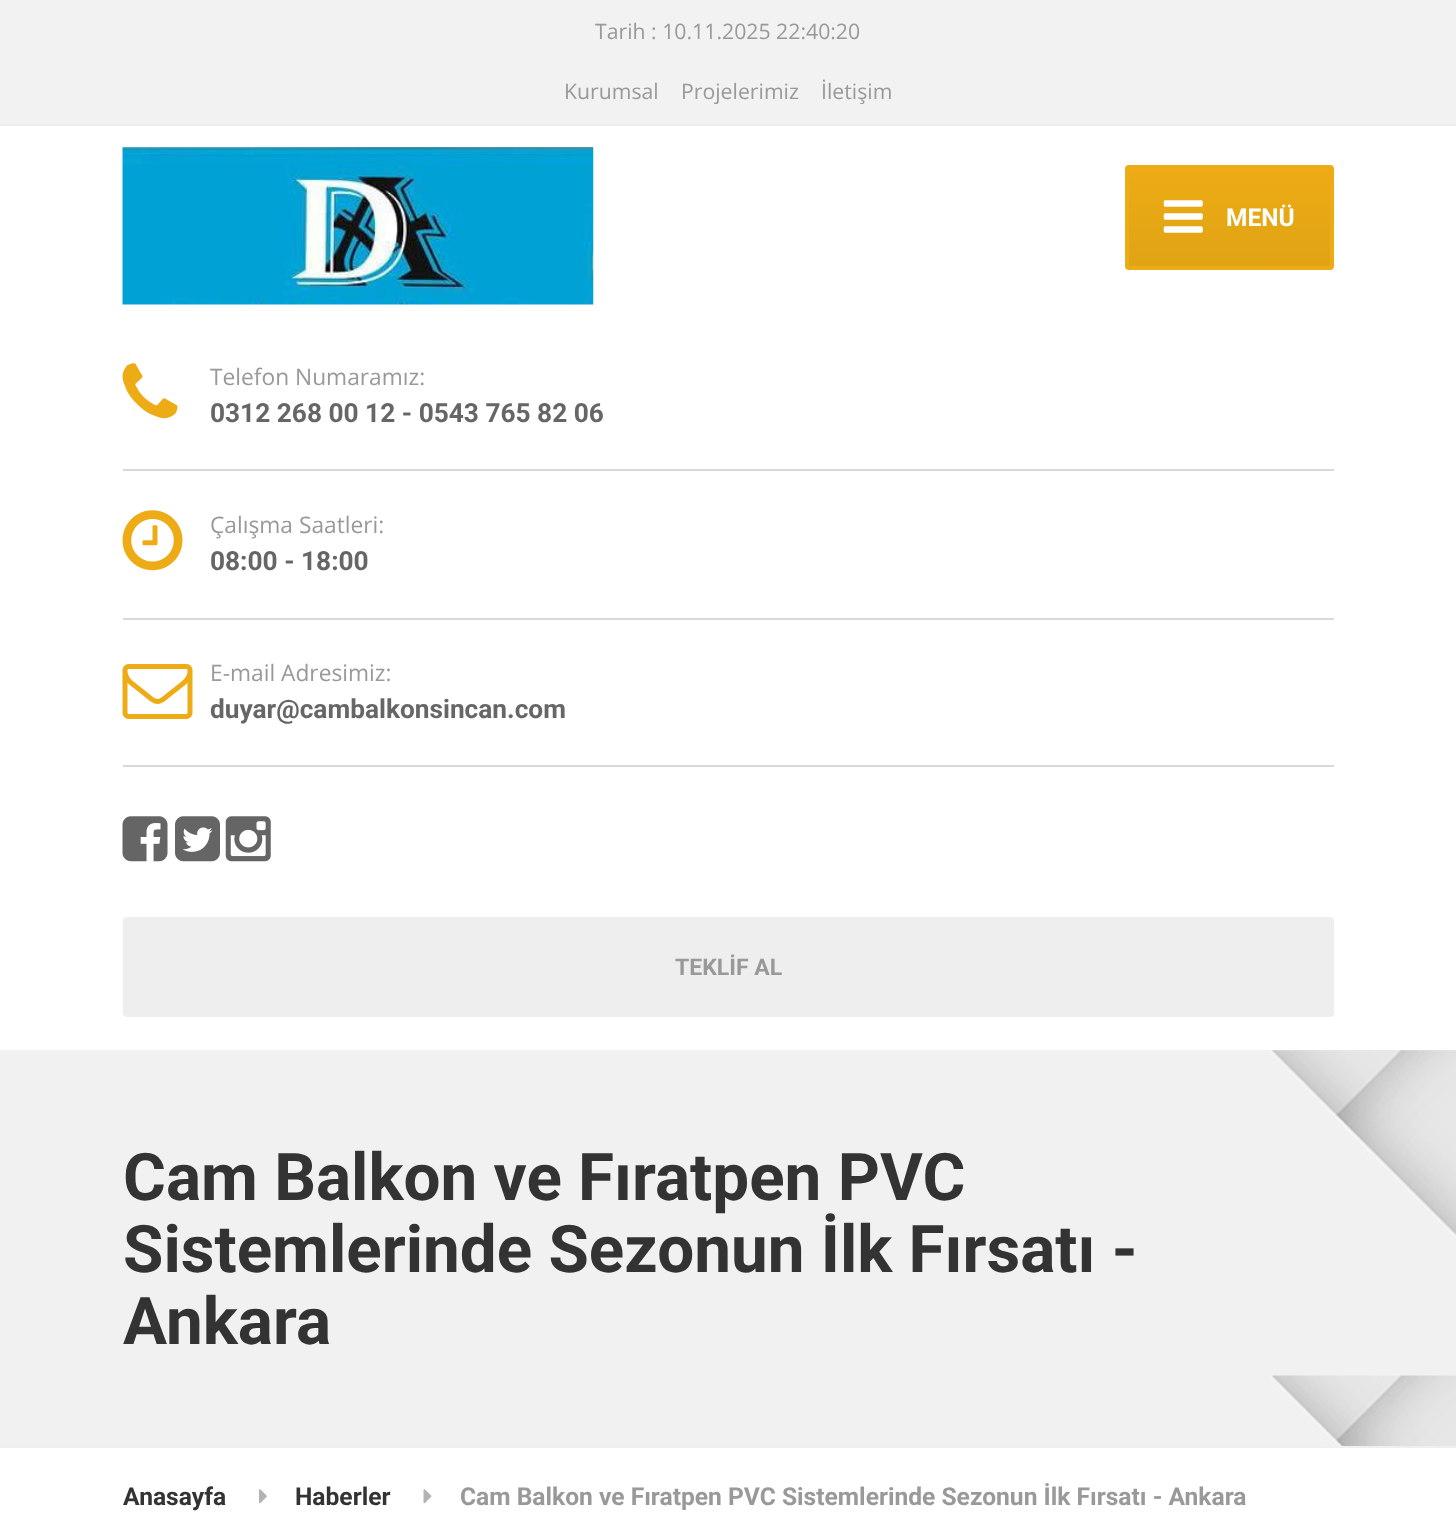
<svg xmlns="http://www.w3.org/2000/svg" width="1456" height="1520">
<defs>
<linearGradient id="g1" gradientUnits="userSpaceOnUse" x1="1229" y1="168" x2="1229" y2="266"><stop offset="0" stop-color="#edac15"/><stop offset="1" stop-color="#e0a314"/></linearGradient>
</defs>
<rect width="100%" height="100%" fill="#fff"/>
<rect width="1456" height="124" fill="#f2f2f2"/>
<rect y="124" width="1456" height="2" fill="#eee"/>
<text x="595" y="39" style="font-family:Open Sans;font-size:21.25px;fill:#999">Tarih : 10.11.2025 22:40:20</text>
<text x="564" y="99" style="font-family:Open Sans;font-size:21.25px;fill:#999">Kurumsal</text>
<text x="681" y="99" style="font-family:Open Sans;font-size:21.25px;fill:#999">Projelerimiz</text>
<text x="821" y="99" style="font-family:Open Sans;font-size:21.25px;fill:#999">İletişim</text>
<image x="122" y="147" width="472" height="158" href="media/1.png"/>
<rect x="1125" y="168" width="209" height="98" fill="url(#g1)"/>
<rect x="1127" y="167" width="205" height="101" rx="2" fill="none" stroke="#edac15" stroke-width="4"/>
<image x="1163" y="200" width="40" height="33" href="media/2.png"/>
<text x="1226" y="226" style="font-family:Roboto;font-size:24.5px;font-weight:bold;fill:#fff">MENÜ</text>
<rect x="123" y="469" width="1211" height="2" fill="#d9d9d9"/>
<image x="122" y="363" width="56" height="56" href="media/3.png"/>
<text x="210" y="385" style="font-family:Open Sans;font-size:22.75px;fill:#999">Telefon Numaramız:</text>
<text x="210" y="422" style="font-family:Roboto;font-size:26.25px;font-weight:bold;fill:#666">0312 268 00 12 - 0543 765 82 06</text>
<rect x="123" y="618" width="1211" height="2" fill="#d9d9d9"/>
<image x="122" y="510" width="61" height="61" href="media/4.png"/>
<text x="210" y="533" style="font-family:Open Sans;font-size:22.75px;fill:#999">Çalışma Saatleri:</text>
<text x="210" y="570" style="font-family:Roboto;font-size:26.25px;font-weight:bold;fill:#666">08:00 - 18:00</text>
<rect x="123" y="765" width="1211" height="2" fill="#d9d9d9"/>
<image x="122" y="664" width="71" height="55" href="media/5.png"/>
<text x="210" y="681" style="font-family:Open Sans;font-size:22.75px;fill:#999">E-mail Adresimiz:</text>
<text x="210" y="718" style="font-family:Roboto;font-size:26.25px;font-weight:bold;fill:#666">duyar@cambalkonsincan.com</text>
<image x="122" y="816" width="46" height="46" href="media/6.png"/>
<image x="175" y="816" width="45" height="46" href="media/7.png"/>
<image x="225" y="816" width="46" height="46" href="media/8.png"/>
<rect x="125" y="919" width="1207" height="96" rx="2" fill="#eee" stroke="#eee" stroke-width="4"/>
<text x="675" y="975" style="font-family:Roboto;font-size:23px;font-weight:bold;fill:#999">TEKLİF AL</text>
<image x="0" y="1050" width="1456" height="396" href="media/9.png"/>
<rect y="1446" width="1456" height="2" fill="#efefef"/>
<text x="123" y="1200" style="font-family:Roboto;font-size:65.6px;font-weight:bold;fill:#333">Cam Balkon ve Fıratpen PVC</text>
<text x="123" y="1272" style="font-family:Roboto;font-size:65.6px;font-weight:bold;fill:#333">Sistemlerinde Sezonun İlk Fırsatı -</text>
<text x="123" y="1344" style="font-family:Roboto;font-size:65.6px;font-weight:bold;fill:#333">Ankara</text>
<text x="123" y="1505" style="font-family:Roboto;font-size:24.6px;font-weight:bold;fill:#333">Anasayfa</text>
<image x="259" y="1489" width="8" height="15" href="media/10.png"/>
<text x="295" y="1505" style="font-family:Roboto;font-size:24.6px;font-weight:bold;fill:#333">Haberler</text>
<image x="423" y="1489" width="9" height="15" href="media/11.png"/>
<text x="460" y="1505" style="font-family:Roboto;font-size:24.6px;font-weight:bold;fill:#999">Cam Balkon ve Fıratpen PVC Sistemlerinde Sezonun İlk Fırsatı - Ankara</text>
</svg>
